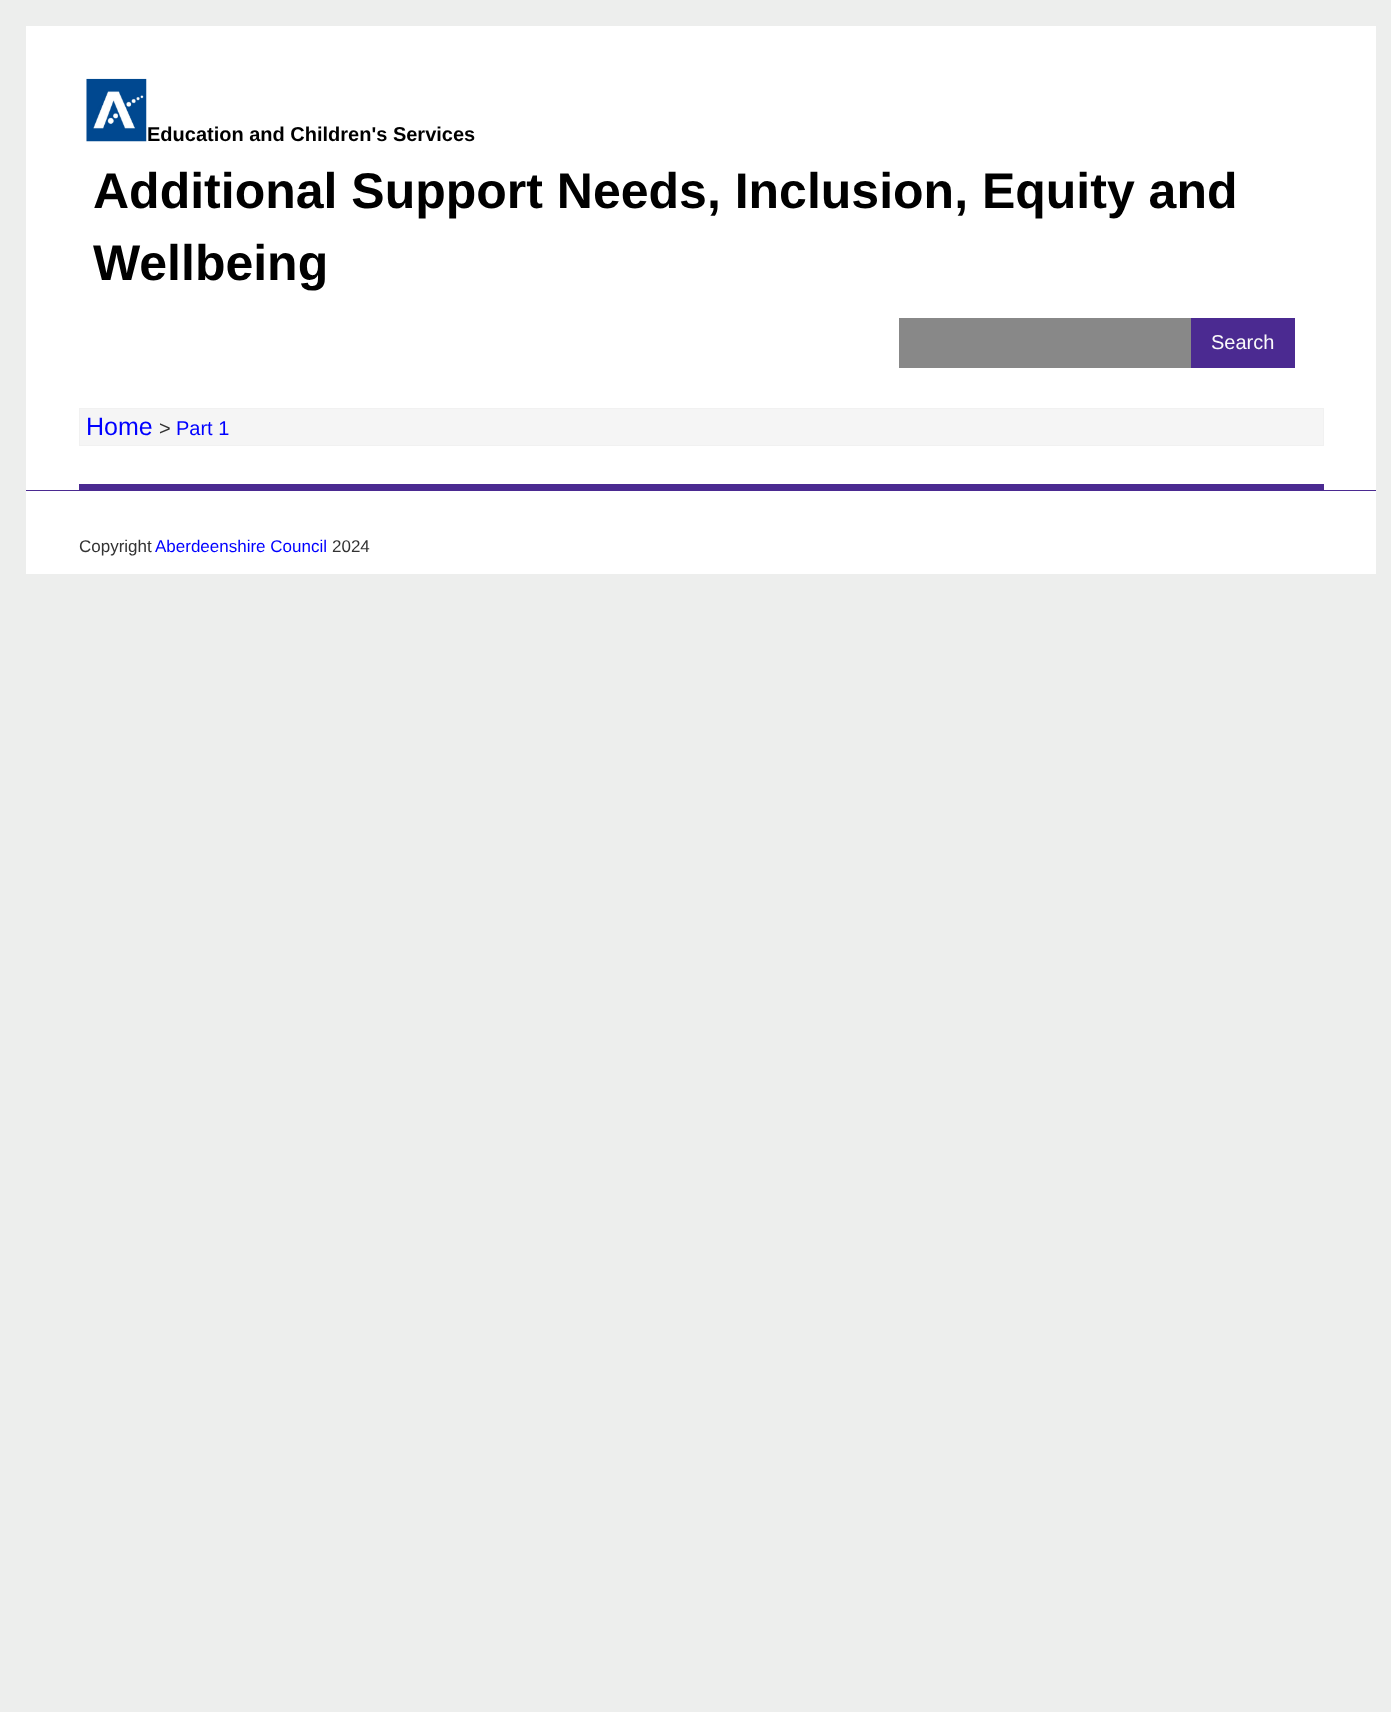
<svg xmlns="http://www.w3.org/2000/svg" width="1391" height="1712">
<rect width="100%" height="100%" fill="#edeeed"/>
<rect x="26" y="26" width="1350" height="548" fill="#fff"/>
<image x="86" y="78" width="61" height="64" href="media/1.png"/>
<text x="147" y="141" style="font-family:Liberation Sans;font-size:20px;font-weight:bold;fill:#000">Education and Children's Services</text>
<text x="93" y="208" style="font-family:Liberation Sans;font-size:50px;font-weight:bold;fill:#000">Additional Support Needs, Inclusion, Equity and</text>
<text x="93" y="280" style="font-family:Liberation Sans;font-size:50px;font-weight:bold;fill:#000">Wellbeing</text>
<rect x="899" y="318" width="292" height="50" fill="#888"/>
<rect x="1191" y="318" width="104" height="50" fill="#4b2a91"/>
<text x="1211" y="349" style="font-family:Liberation Sans;font-size:20px;fill:#fafafa">Search</text>
<rect x="79.5" y="408.5" width="1244" height="37" fill="#f5f5f5" stroke="#f1f1f1"/>
<text x="86" y="435" style="font-family:Liberation Sans;font-size:25px;fill:#00f">Home</text>
<text x="159" y="435" style="font-family:Liberation Sans;font-size:20px;fill:#333">&gt;</text>
<text x="176" y="435" style="font-family:Liberation Sans;font-size:20px;fill:#00f">Part 1</text>
<rect x="79" y="484" width="1245" height="6" fill="#4b2a91"/>
<rect x="26" y="490" width="1350" height="1" fill="#4b2a91"/>
<text x="79" y="552" style="font-family:Liberation Sans;font-size:17px;fill:#333">Copyright</text>
<text x="155" y="552" style="font-family:Liberation Sans;font-size:17px;fill:#00f">Aberdeenshire Council</text>
<text x="332" y="552" style="font-family:Liberation Sans;font-size:17px;fill:#333">2024</text>
</svg>
